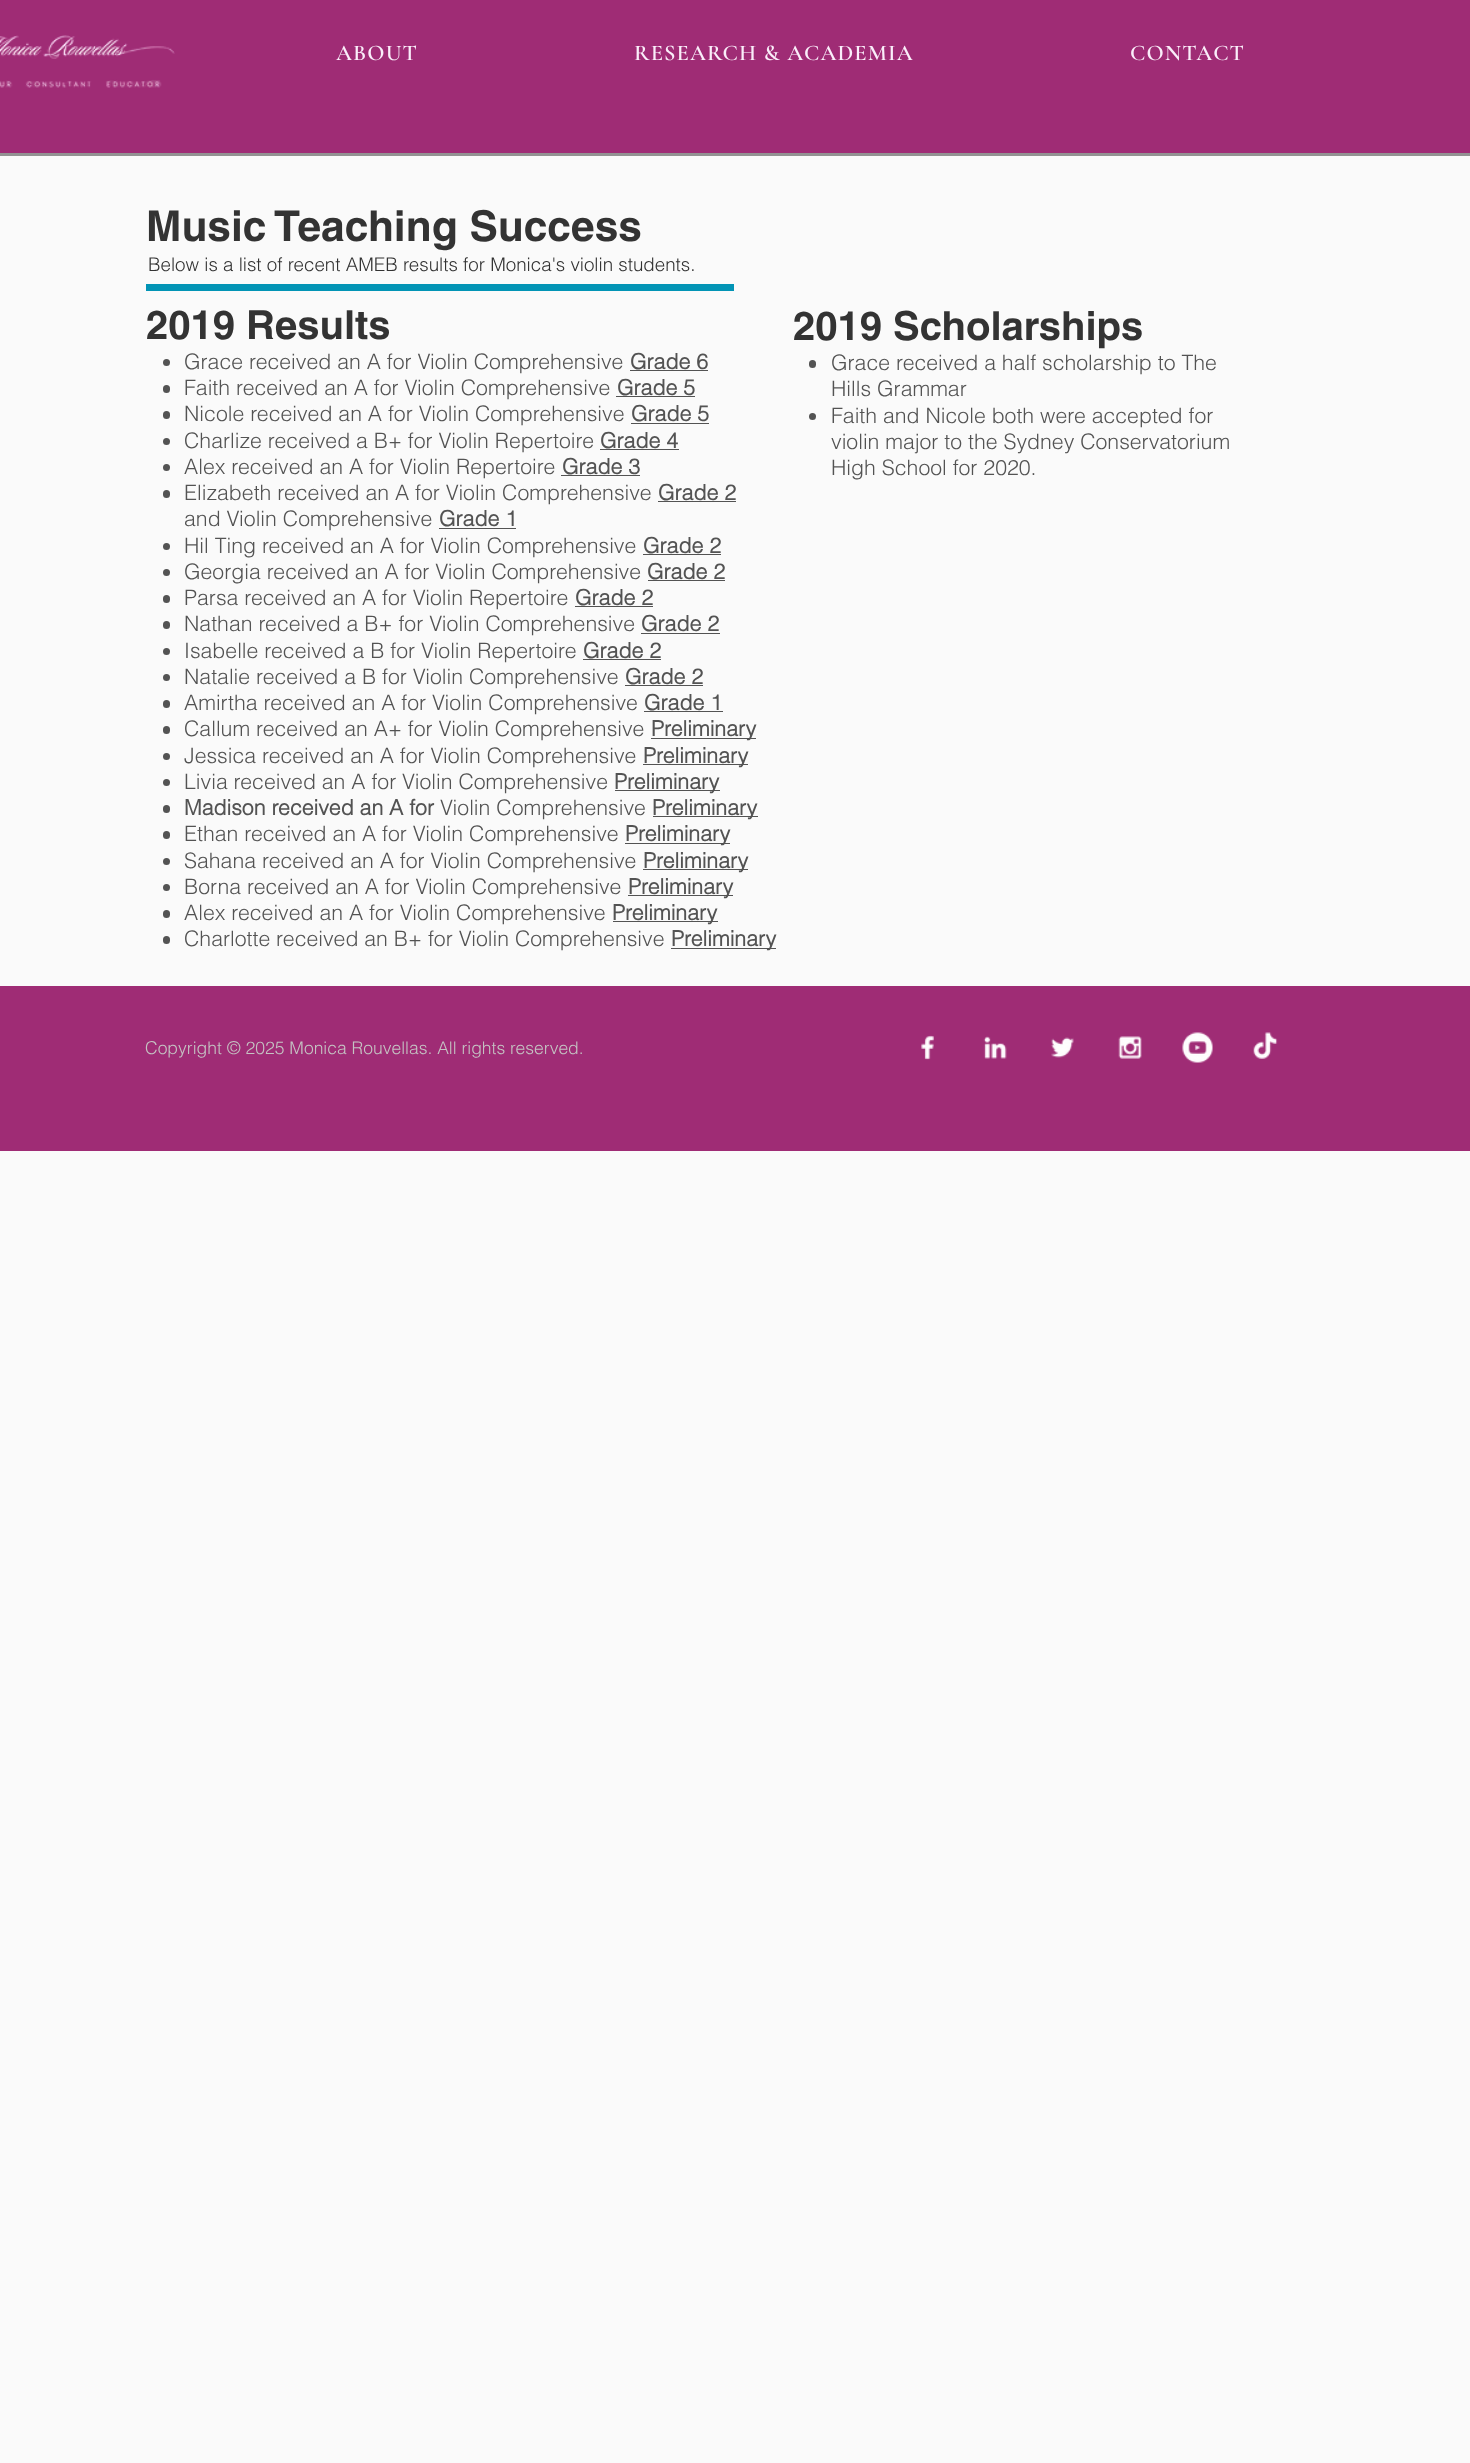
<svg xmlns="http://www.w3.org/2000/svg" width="1470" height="2463">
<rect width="100%" height="100%" fill="#fafafa"/>
<rect y="153" width="1470" height="3" fill="#929292"/>
<rect width="1470" height="153" fill="#9f2c75"/>
<image x="0" y="35" width="175" height="53" href="media/1.png"/>
<text x="336" y="60" style="font-family:Cormorant Garamond;font-size:22.5px;font-weight:600;letter-spacing:1.1px;fill:#faeefa">ABOUT</text>
<text x="634" y="60" style="font-family:Cormorant Garamond;font-size:22.5px;font-weight:600;letter-spacing:1.1px;fill:#faeefa">RESEARCH &amp; ACADEMIA</text>
<text x="1130" y="60" style="font-family:Cormorant Garamond;font-size:22.5px;font-weight:600;letter-spacing:1.1px;fill:#faeefa">CONTACT</text>
<text x="146" y="241" style="font-family:helvetica;font-size:42.5px;font-weight:bold;fill:#333">Music Teaching Success</text>
<text x="148" y="271" style="font-family:helvetica;font-size:18.75px;font-weight:300;fill:#333">Below is a list of recent AMEB results for Monica's violin students.</text>
<rect x="146" y="284" width="588" height="7" fill="#0294b5"/>
<text x="146" y="339" style="font-family:helvetica;font-size:40px;font-weight:bold;fill:#333">2019 Results</text>
<circle cx="166.5" cy="362.5" r="3.5" fill="#535353"/>
<text x="184" y="369" style="font-family:helvetica;font-size:21.25px;font-weight:300;fill:#535353">Grace received an A for Violin Comprehensive</text>
<text x="630" y="369" style="font-family:'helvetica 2';font-size:21.25px;font-weight:bold;fill:#535353">Grade 6</text>
<rect x="630" y="370" width="78" height="1" fill="#535353"/>
<rect x="163" y="385" width="7" height="8" rx="3.5" fill="#535353"/>
<text x="184" y="395" style="font-family:helvetica;font-size:21.25px;font-weight:300;fill:#535353">Faith received an A for Violin Comprehensive</text>
<text x="617" y="395" style="font-family:'helvetica 2';font-size:21.25px;font-weight:bold;fill:#535353">Grade 5</text>
<rect x="616" y="396" width="79" height="1" fill="#535353"/>
<rect x="163" y="411" width="7" height="8" rx="3.5" fill="#535353"/>
<text x="184" y="421" style="font-family:helvetica;font-size:21.25px;font-weight:300;fill:#535353">Nicole received an A for Violin Comprehensive</text>
<text x="631" y="421" style="font-family:'helvetica 2';font-size:21.25px;font-weight:bold;fill:#535353">Grade 5</text>
<rect x="631" y="423" width="78" height="1" fill="#535353"/>
<circle cx="166.5" cy="441.5" r="3.5" fill="#535353"/>
<text x="184" y="448" style="font-family:helvetica;font-size:21.25px;font-weight:300;fill:#535353">Charlize received a B+ for Violin Repertoire</text>
<text x="600" y="448" style="font-family:'helvetica 2';font-size:21.25px;font-weight:bold;fill:#535353">Grade 4</text>
<rect x="600" y="449" width="79" height="1" fill="#535353"/>
<circle cx="166.5" cy="467.5" r="3.5" fill="#535353"/>
<text x="184" y="474" style="font-family:helvetica;font-size:21.25px;font-weight:300;fill:#535353">Alex received an A for Violin Repertoire</text>
<text x="562" y="474" style="font-family:'helvetica 2';font-size:21.25px;font-weight:bold;fill:#535353">Grade 3</text>
<rect x="561" y="475" width="79" height="1" fill="#535353"/>
<rect x="163" y="490" width="7" height="8" rx="3.5" fill="#535353"/>
<text x="184" y="500" style="font-family:helvetica;font-size:21.25px;font-weight:300;fill:#535353">Elizabeth received an A for Violin Comprehensive</text>
<text x="658" y="500" style="font-family:'helvetica 2';font-size:21.25px;font-weight:bold;fill:#535353">Grade 2</text>
<rect x="658" y="501" width="78" height="1" fill="#535353"/>
<text x="184" y="526" style="font-family:helvetica;font-size:21.25px;font-weight:300;fill:#535353">and Violin Comprehensive</text>
<text x="439" y="526" style="font-family:'helvetica 2';font-size:21.25px;font-weight:bold;fill:#535353">Grade 1</text>
<rect x="439" y="528" width="77" height="1" fill="#535353"/>
<circle cx="166.5" cy="546.5" r="3.5" fill="#535353"/>
<text x="184" y="553" style="font-family:helvetica;font-size:21.25px;font-weight:300;fill:#535353">Hil Ting received an A for Violin Comprehensive</text>
<text x="643" y="553" style="font-family:'helvetica 2';font-size:21.25px;font-weight:bold;fill:#535353">Grade 2</text>
<rect x="643" y="554" width="78" height="1" fill="#535353"/>
<circle cx="166.5" cy="572.5" r="3.5" fill="#535353"/>
<text x="184" y="579" style="font-family:helvetica;font-size:21.25px;font-weight:300;fill:#535353">Georgia received an A for Violin Comprehensive</text>
<text x="647" y="579" style="font-family:'helvetica 2';font-size:21.25px;font-weight:bold;fill:#535353">Grade 2</text>
<rect x="648" y="580" width="77" height="1" fill="#535353"/>
<rect x="163" y="595" width="7" height="8" rx="3.5" fill="#535353"/>
<text x="184" y="605" style="font-family:helvetica;font-size:21.25px;font-weight:300;fill:#535353">Parsa received an A for Violin Repertoire</text>
<text x="575" y="605" style="font-family:'helvetica 2';font-size:21.25px;font-weight:bold;fill:#535353">Grade 2</text>
<rect x="575" y="606" width="78" height="1" fill="#535353"/>
<rect x="163" y="621" width="7" height="8" rx="3.5" fill="#535353"/>
<text x="184" y="631" style="font-family:helvetica;font-size:21.25px;font-weight:300;fill:#535353">Nathan received a B+ for Violin Comprehensive</text>
<text x="641" y="631" style="font-family:'helvetica 2';font-size:21.25px;font-weight:bold;fill:#535353">Grade 2</text>
<rect x="641" y="633" width="79" height="1" fill="#535353"/>
<circle cx="166.5" cy="651.5" r="3.5" fill="#535353"/>
<text x="184" y="658" style="font-family:helvetica;font-size:21.25px;font-weight:300;fill:#535353">Isabelle received a B for Violin Repertoire</text>
<text x="583" y="658" style="font-family:'helvetica 2';font-size:21.25px;font-weight:bold;fill:#535353">Grade 2</text>
<rect x="583" y="659" width="78" height="1" fill="#535353"/>
<circle cx="166.5" cy="677.5" r="3.5" fill="#535353"/>
<text x="184" y="684" style="font-family:helvetica;font-size:21.25px;font-weight:300;fill:#535353">Natalie received a B for Violin Comprehensive</text>
<text x="625" y="684" style="font-family:'helvetica 2';font-size:21.25px;font-weight:bold;fill:#535353">Grade 2</text>
<rect x="625" y="685" width="78" height="1" fill="#535353"/>
<rect x="163" y="700" width="7" height="8" rx="3.5" fill="#535353"/>
<text x="184" y="710" style="font-family:helvetica;font-size:21.25px;font-weight:300;fill:#535353">Amirtha received an A for Violin Comprehensive</text>
<text x="644" y="710" style="font-family:'helvetica 2';font-size:21.25px;font-weight:bold;fill:#535353">Grade 1</text>
<rect x="644" y="711" width="79" height="1" fill="#535353"/>
<rect x="163" y="726" width="7" height="8" rx="3.5" fill="#535353"/>
<text x="184" y="736" style="font-family:helvetica;font-size:21.25px;font-weight:300;fill:#535353">Callum received an A+ for Violin Comprehensive</text>
<rect x="651" y="738" width="105" height="1" fill="#535353"/>
<text x="651" y="736" style="font-family:'helvetica 2';font-size:21.25px;font-weight:bold;fill:#535353">Preliminary</text>
<circle cx="166.5" cy="756.5" r="3.5" fill="#535353"/>
<text x="184" y="763" style="font-family:helvetica;font-size:21.25px;font-weight:300;fill:#535353">Jessica received an A for Violin Comprehensive</text>
<rect x="643" y="764" width="105" height="1" fill="#535353"/>
<text x="643" y="763" style="font-family:'helvetica 2';font-size:21.25px;font-weight:bold;fill:#535353">Preliminary</text>
<circle cx="166.5" cy="782.5" r="3.5" fill="#535353"/>
<text x="184" y="789" style="font-family:helvetica;font-size:21.25px;font-weight:300;fill:#535353">Livia received an A for Violin Comprehensive</text>
<rect x="615" y="790" width="105" height="1" fill="#535353"/>
<text x="614" y="789" style="font-family:'helvetica 2';font-size:21.25px;font-weight:bold;fill:#535353">Preliminary</text>
<rect x="163" y="805" width="7" height="8" rx="3.5" fill="#535353"/>
<text x="184" y="815" style="font-family:'helvetica 2';font-size:21.25px;font-weight:bold;fill:#535353">Madison received an A for</text>
<text x="440" y="815" style="font-family:helvetica;font-size:21.25px;font-weight:300;fill:#535353">Violin Comprehensive</text>
<rect x="653" y="816" width="105" height="1" fill="#535353"/>
<text x="652" y="815" style="font-family:'helvetica 2';font-size:21.25px;font-weight:bold;fill:#535353">Preliminary</text>
<rect x="163" y="831" width="7" height="8" rx="3.5" fill="#535353"/>
<text x="184" y="841" style="font-family:helvetica;font-size:21.25px;font-weight:300;fill:#535353">Ethan received an A for Violin Comprehensive</text>
<rect x="625" y="843" width="105" height="1" fill="#535353"/>
<text x="625" y="841" style="font-family:'helvetica 2';font-size:21.25px;font-weight:bold;fill:#535353">Preliminary</text>
<circle cx="166.5" cy="861.5" r="3.5" fill="#535353"/>
<text x="184" y="868" style="font-family:helvetica;font-size:21.25px;font-weight:300;fill:#535353">Sahana received an A for Violin Comprehensive</text>
<rect x="643" y="869" width="105" height="1" fill="#535353"/>
<text x="643" y="868" style="font-family:'helvetica 2';font-size:21.25px;font-weight:bold;fill:#535353">Preliminary</text>
<circle cx="166.5" cy="887.5" r="3.5" fill="#535353"/>
<text x="184" y="894" style="font-family:helvetica;font-size:21.25px;font-weight:300;fill:#535353">Borna received an A for Violin Comprehensive</text>
<rect x="628" y="895" width="105" height="1" fill="#535353"/>
<text x="628" y="894" style="font-family:'helvetica 2';font-size:21.25px;font-weight:bold;fill:#535353">Preliminary</text>
<rect x="163" y="910" width="7" height="8" rx="3.5" fill="#535353"/>
<text x="184" y="920" style="font-family:helvetica;font-size:21.25px;font-weight:300;fill:#535353">Alex received an A for Violin Comprehensive</text>
<rect x="613" y="921" width="105" height="1" fill="#535353"/>
<text x="612" y="920" style="font-family:'helvetica 2';font-size:21.25px;font-weight:bold;fill:#535353">Preliminary</text>
<rect x="163" y="936" width="7" height="8" rx="3.5" fill="#535353"/>
<text x="184" y="946" style="font-family:helvetica;font-size:21.25px;font-weight:300;fill:#535353">Charlotte received an B+ for Violin Comprehensive</text>
<rect x="671" y="948" width="105" height="1" fill="#535353"/>
<text x="671" y="946" style="font-family:'helvetica 2';font-size:21.25px;font-weight:bold;fill:#535353">Preliminary</text>
<text x="793" y="340" style="font-family:helvetica;font-size:40px;font-weight:bold;fill:#333">2019 Scholarships</text>
<rect x="809" y="360" width="7" height="8" rx="3.5" fill="#535353"/>
<text x="831" y="370" style="font-family:helvetica;font-size:21.25px;font-weight:300;fill:#535353">Grace received a half scholarship to The</text>
<text x="831" y="396" style="font-family:helvetica;font-size:21.25px;font-weight:300;fill:#535353">Hills Grammar</text>
<circle cx="812.5" cy="416.5" r="3.5" fill="#535353"/>
<text x="831" y="423" style="font-family:helvetica;font-size:21.25px;font-weight:300;fill:#535353">Faith and Nicole both were accepted for</text>
<text x="831" y="449" style="font-family:helvetica;font-size:21.25px;font-weight:300;fill:#535353">violin major to the Sydney Conservatorium</text>
<text x="831" y="475" style="font-family:helvetica;font-size:21.25px;font-weight:300;fill:#535353">High School for 2020.</text>
<rect y="986" width="1470" height="165" fill="#9f2c75"/>
<text x="145" y="1054" style="font-family:helvetica;font-size:17.5px;font-weight:300;fill:#c5c3c3">Copyright © 2025 Monica Rouvellas. All rights reserved.</text>
<image x="921" y="1035" width="13" height="25" href="media/2.png"/>
<image x="983" y="1036" width="24" height="23" href="media/3.png"/>
<image x="1051" y="1037" width="23" height="21" href="media/4.png"/>
<image x="1118" y="1036" width="24" height="23" href="media/5.png"/>
<image x="1182" y="1032" width="31" height="31" href="media/6.png"/>
<image x="1253" y="1032" width="25" height="27" href="media/7.png"/>
</svg>
